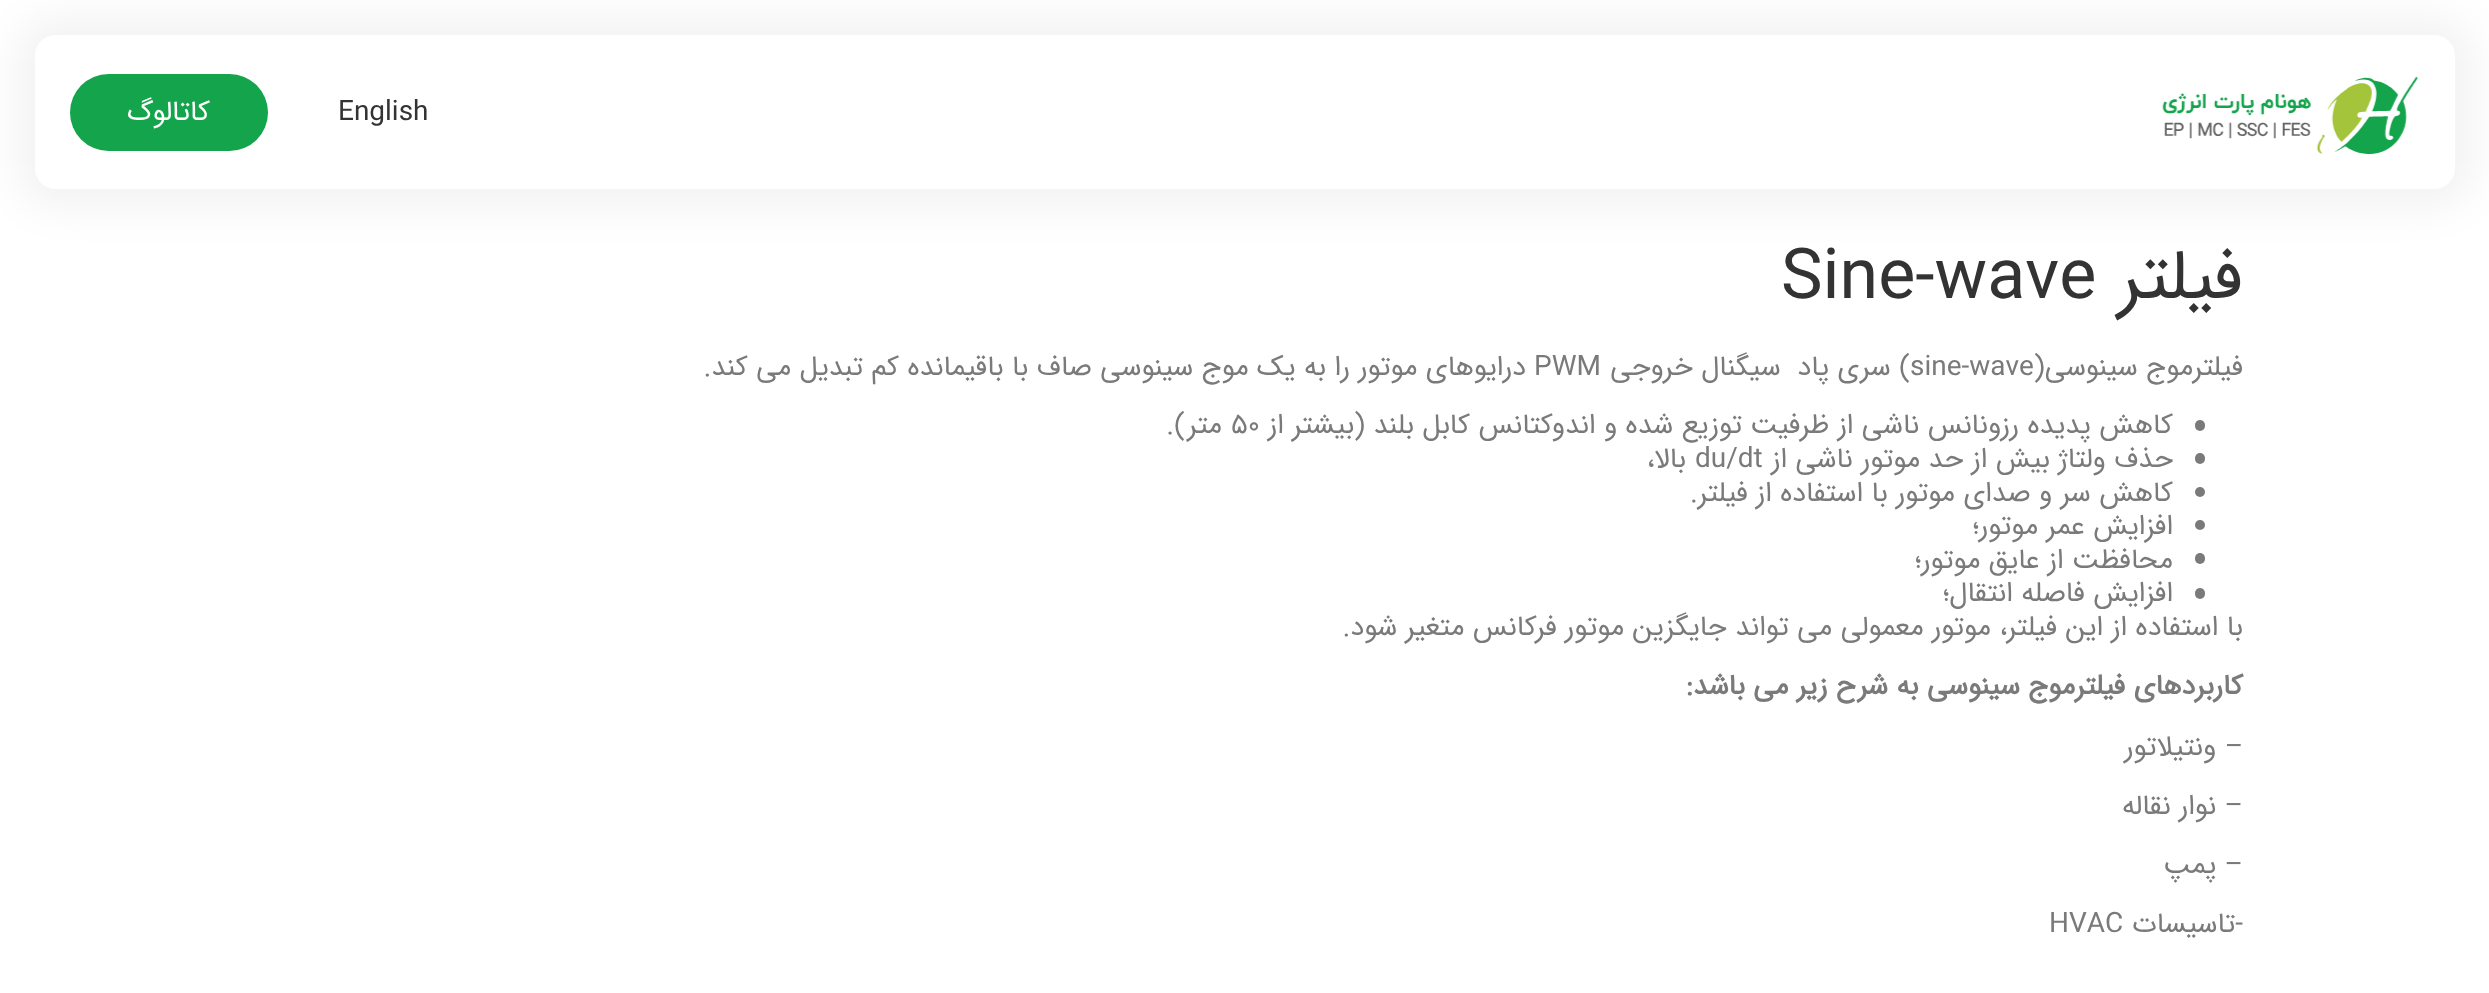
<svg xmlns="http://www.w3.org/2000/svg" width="2489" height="993">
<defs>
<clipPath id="clip1"><path d="M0 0h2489v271h-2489zm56 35h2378c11.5 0 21 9.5 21 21v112c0 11.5-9.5 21-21 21h-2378c-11.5 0-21-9.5-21-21v-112c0-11.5 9.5-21 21-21z" clip-rule="evenodd"/></clipPath>
</defs>
<rect width="100%" height="100%" fill="#fff"/>
<g clip-path="url(#clip1)">
<rect x="18" y="18" width="2455" height="189" rx="39" fill="#0000000d" filter="blur(21px)"/>
</g>
<image x="2162" y="76" width="256" height="78" href="media/1.png"/>
<text x="338" y="120" style="font-family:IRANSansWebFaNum;font-size:28px;fill:#333">English</text>
<rect x="70" y="74" width="198" height="77" rx="38.5" fill="#14a44b"/>
<text x="210" y="120" style="font-family:IRANSansWebFaNum;font-size:28px;direction:rtl;fill:#fff">کاتالوگ</text>
<text x="2243" y="298" style="font-family:IRANSansWebFaNum;font-size:70px;direction:rtl;fill:#333">فیلتر</text>
<text x="1781" y="298" style="font-family:IRANSansWebFaNum;font-size:70px;fill:#333">Sine-wave</text>
<text x="2243" y="375" style="font-family:IRANSansWebFaNum;font-size:28px;direction:rtl;fill:#7a7a7a">فیلترموج سینوسی(</text>
<text x="1910" y="375" style="font-family:IRANSansWebFaNum;font-size:28px;fill:#7a7a7a">sine-wave</text>
<text x="1910" y="375" style="font-family:IRANSansWebFaNum;font-size:28px;direction:rtl;fill:#7a7a7a" xml:space="preserve">) سری پاد  سیگنال خروجی</text>
<text x="1534" y="375" style="font-family:IRANSansWebFaNum;font-size:28px;fill:#7a7a7a">PWM</text>
<text x="1526" y="375" style="font-family:IRANSansWebFaNum;font-size:28px;direction:rtl;fill:#7a7a7a">درایوهای موتور را به یک موج سینوسی صاف با باقیمانده کم تبدیل می کند.</text>
<rect x="2195" y="420" width="10" height="11" rx="5" fill="#7a7a7a"/>
<text x="2173" y="433" style="font-family:IRANSansWebFaNum;font-size:28px;direction:rtl;fill:#7a7a7a">کاهش پدیده رزونانس ناشی از ظرفیت توزیع شده و اندوکتانس کابل بلند (بیشتر از</text>
<text x="1231" y="433" style="font-family:IRANSansWebFaNum;font-size:28px;fill:#7a7a7a">۵۰</text>
<text x="1222" y="433" style="font-family:IRANSansWebFaNum;font-size:28px;direction:rtl;fill:#7a7a7a">متر).</text>
<rect x="2195" y="453" width="10" height="11" rx="5" fill="#7a7a7a"/>
<text x="2173" y="467" style="font-family:IRANSansWebFaNum;font-size:28px;direction:rtl;fill:#7a7a7a">حذف ولتاژ بیش از حد موتور ناشی از</text>
<text x="1695" y="467" style="font-family:IRANSansWebFaNum;font-size:28px;fill:#7a7a7a">du/dt</text>
<text x="1686" y="467" style="font-family:IRANSansWebFaNum;font-size:28px;direction:rtl;fill:#7a7a7a">بالا،</text>
<circle cx="2200" cy="492" r="5" fill="#7a7a7a"/>
<text x="2173" y="501" style="font-family:IRANSansWebFaNum;font-size:28px;direction:rtl;fill:#7a7a7a">کاهش سر و صدای موتور با استفاده از فیلتر.</text>
<circle cx="2200" cy="525" r="5" fill="#7a7a7a"/>
<text x="2173" y="534" style="font-family:IRANSansWebFaNum;font-size:28px;direction:rtl;fill:#7a7a7a">افزایش عمر موتور؛</text>
<rect x="2195" y="553" width="10" height="11" rx="5" fill="#7a7a7a"/>
<text x="2173" y="568" style="font-family:IRANSansWebFaNum;font-size:28px;direction:rtl;fill:#7a7a7a">محافظت از عایق موتور؛</text>
<rect x="2195" y="588" width="10" height="11" rx="5" fill="#7a7a7a"/>
<text x="2173" y="601" style="font-family:IRANSansWebFaNum;font-size:28px;direction:rtl;fill:#7a7a7a">افزایش فاصله انتقال؛</text>
<text x="2243" y="635" style="font-family:IRANSansWebFaNum;font-size:28px;direction:rtl;fill:#7a7a7a">با استفاده از این فیلتر، موتور معمولی می تواند جایگزین موتور فرکانس متغیر شود.</text>
<text x="2243" y="694" style="font-family:IRANSansWebFaNum;font-size:28px;font-weight:bold;direction:rtl;fill:#7a7a7a">کاربردهای فیلترموج سینوسی به شرح زیر می باشد:</text>
<text x="2243" y="755" style="font-family:IRANSansWebFaNum;font-size:28px;direction:rtl;fill:#7a7a7a">– ونتیلاتور</text>
<text x="2243" y="814" style="font-family:IRANSansWebFaNum;font-size:28px;direction:rtl;fill:#7a7a7a">– نوار نقاله</text>
<text x="2243" y="873" style="font-family:IRANSansWebFaNum;font-size:28px;direction:rtl;fill:#7a7a7a">– پمپ</text>
<text x="2243" y="932" style="font-family:IRANSansWebFaNum;font-size:28px;direction:rtl;fill:#7a7a7a">-تاسیسات</text>
<text x="2049" y="932" style="font-family:IRANSansWebFaNum;font-size:28px;fill:#7a7a7a">HVAC</text>
</svg>
